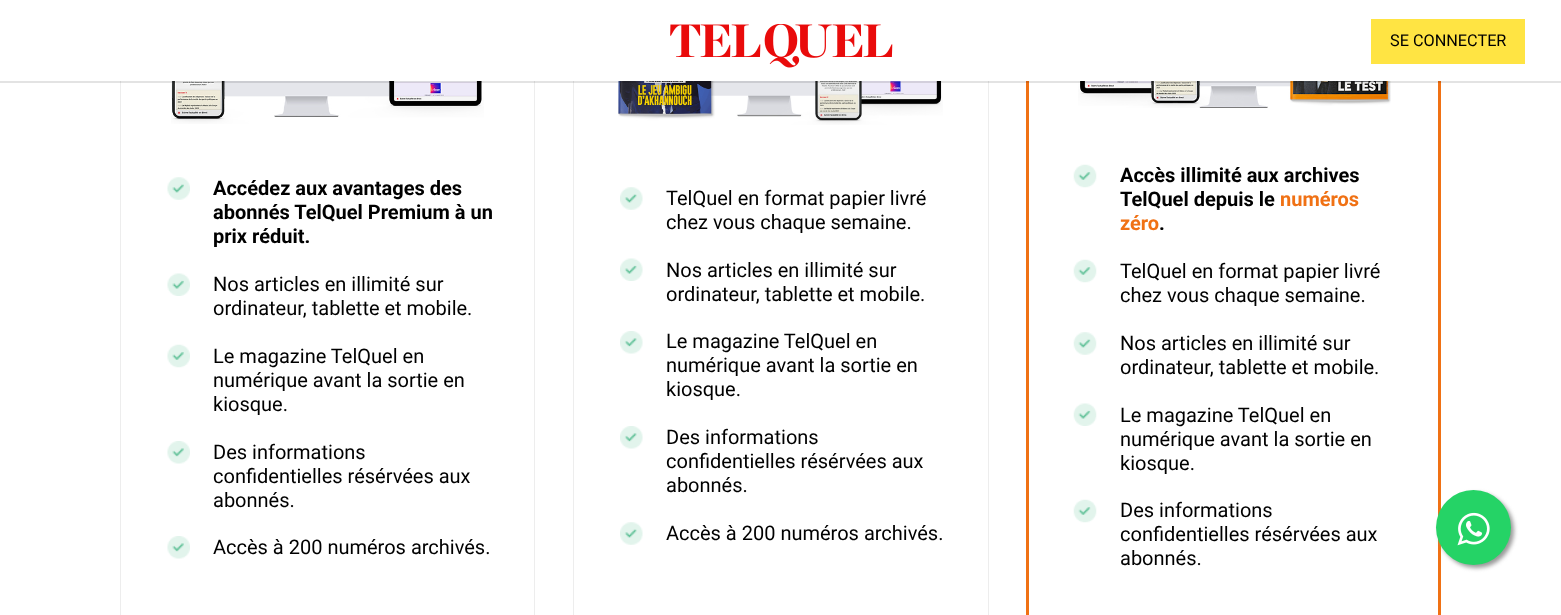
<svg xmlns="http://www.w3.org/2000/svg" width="1561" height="615">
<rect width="100%" height="100%" fill="#fff"/>
<rect x="120.5" y="-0.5" width="414" height="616" fill="none" stroke="#ededed"/>
<image x="171" y="81" width="313" height="43" href="media/2.png"/>
<rect x="573.5" y="-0.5" width="415" height="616" fill="none" stroke="#ededed"/>
<image x="618" y="81" width="325" height="44" href="media/7.png"/>
<rect x="1027.5" y="-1.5" width="412" height="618" fill="none" stroke="#f07114" stroke-width="3"/>
<image x="1078" y="81" width="313" height="27" href="media/12.png"/>
<rect y="81" width="1561" height="2" fill="#0000001c"/>
<rect x="120" width="1321" height="81" fill="#fff"/>
<image x="670" y="24" width="223" height="44" href="media/1.png"/>
<rect x="1371" y="19" width="154" height="45" fill="#ffe443"/>
<text x="1390" y="46" style="font-family:Roboto;font-size:16.25px;fill:#000">SE CONNECTER</text>
<image x="167" y="177" width="23" height="23" href="media/3.png"/>
<text x="213" y="195" style="font-family:Roboto;font-size:20px;font-weight:bold;fill:#000">Accédez aux avantages des</text>
<text x="213" y="219" style="font-family:Roboto;font-size:20px;font-weight:bold;fill:#000">abonnés TelQuel Premium à un</text>
<text x="213" y="243" style="font-family:Roboto;font-size:20px;font-weight:bold;fill:#000">prix réduit.</text>
<image x="167" y="273" width="23" height="23" href="media/4.png"/>
<text x="213" y="291" style="font-family:Roboto;font-size:20px;fill:#000">Nos articles en illimité sur</text>
<text x="213" y="315" style="font-family:Roboto;font-size:20px;fill:#000">ordinateur, tablette et mobile.</text>
<image x="167" y="344" width="23" height="24" href="media/5.png"/>
<text x="213" y="363" style="font-family:Roboto;font-size:20px;fill:#000">Le magazine TelQuel en</text>
<text x="213" y="387" style="font-family:Roboto;font-size:20px;fill:#000">numérique avant la sortie en</text>
<text x="213" y="411" style="font-family:Roboto;font-size:20px;fill:#000">kiosque.</text>
<image x="167" y="441" width="23" height="23" href="media/6.png"/>
<text x="213" y="459" style="font-family:Roboto;font-size:20px;fill:#000">Des informations</text>
<text x="213" y="483" style="font-family:Roboto;font-size:20px;fill:#000">confidentielles résérvées aux</text>
<text x="213" y="507" style="font-family:Roboto;font-size:20px;fill:#000">abonnés.</text>
<image x="167" y="536" width="23" height="23" href="media/6.png"/>
<text x="213" y="554" style="font-family:Roboto;font-size:20px;fill:#000">Accès à 200 numéros archivés.</text>
<image x="620" y="187" width="23" height="23" href="media/8.png"/>
<text x="666" y="205" style="font-family:Roboto;font-size:20px;fill:#000">TelQuel en format papier livré</text>
<text x="666" y="229" style="font-family:Roboto;font-size:20px;fill:#000">chez vous chaque semaine.</text>
<image x="620" y="258" width="23" height="23" href="media/9.png"/>
<text x="666" y="277" style="font-family:Roboto;font-size:20px;fill:#000">Nos articles en illimité sur</text>
<text x="666" y="301" style="font-family:Roboto;font-size:20px;fill:#000">ordinateur, tablette et mobile.</text>
<image x="620" y="331" width="23" height="23" href="media/10.png"/>
<text x="666" y="348" style="font-family:Roboto;font-size:20px;fill:#000">Le magazine TelQuel en</text>
<text x="666" y="372" style="font-family:Roboto;font-size:20px;fill:#000">numérique avant la sortie en</text>
<text x="666" y="396" style="font-family:Roboto;font-size:20px;fill:#000">kiosque.</text>
<image x="620" y="426" width="23" height="23" href="media/10.png"/>
<text x="666" y="444" style="font-family:Roboto;font-size:20px;fill:#000">Des informations</text>
<text x="666" y="468" style="font-family:Roboto;font-size:20px;fill:#000">confidentielles résérvées aux</text>
<text x="666" y="492" style="font-family:Roboto;font-size:20px;fill:#000">abonnés.</text>
<image x="620" y="522" width="23" height="23" href="media/11.png"/>
<text x="666" y="540" style="font-family:Roboto;font-size:20px;fill:#000">Accès à 200 numéros archivés.</text>
<image x="1073" y="164" width="24" height="24" href="media/13.png"/>
<text x="1120" y="182" style="font-family:Roboto;font-size:20px;font-weight:bold;fill:#000">Accès illimité aux archives</text>
<text x="1120" y="206" style="font-family:Roboto;font-size:20px;font-weight:bold;fill:#000">TelQuel depuis le</text>
<text x="1280" y="206" style="font-family:Roboto;font-size:20px;font-weight:bold;fill:#f07114">numéros</text>
<text x="1120" y="230" style="font-family:Roboto;font-size:20px;font-weight:bold;fill:#f07114">zéro</text>
<text x="1159" y="230" style="font-family:Roboto;font-size:20px;font-weight:bold;fill:#000">.</text>
<image x="1073" y="259" width="24" height="24" href="media/13.png"/>
<text x="1120" y="278" style="font-family:Roboto;font-size:20px;fill:#000">TelQuel en format papier livré</text>
<text x="1120" y="302" style="font-family:Roboto;font-size:20px;fill:#000">chez vous chaque semaine.</text>
<image x="1073" y="332" width="24" height="23" href="media/14.png"/>
<text x="1120" y="350" style="font-family:Roboto;font-size:20px;fill:#000">Nos articles en illimité sur</text>
<text x="1120" y="374" style="font-family:Roboto;font-size:20px;fill:#000">ordinateur, tablette et mobile.</text>
<image x="1073" y="403" width="24" height="23" href="media/15.png"/>
<text x="1120" y="422" style="font-family:Roboto;font-size:20px;fill:#000">Le magazine TelQuel en</text>
<text x="1120" y="446" style="font-family:Roboto;font-size:20px;fill:#000">numérique avant la sortie en</text>
<text x="1120" y="470" style="font-family:Roboto;font-size:20px;fill:#000">kiosque.</text>
<image x="1073" y="499" width="24" height="24" href="media/13.png"/>
<text x="1120" y="517" style="font-family:Roboto;font-size:20px;fill:#000">Des informations</text>
<text x="1120" y="541" style="font-family:Roboto;font-size:20px;fill:#000">confidentielles résérvées aux</text>
<text x="1120" y="565" style="font-family:Roboto;font-size:20px;fill:#000">abonnés.</text>
<rect x="1439" y="493" width="75" height="75" rx="37.5" fill="#999" filter="blur(2px)"/>
<circle cx="1473.5" cy="527.5" r="37.5" fill="#25d366"/>
<image x="1457" y="512" width="33" height="34" href="media/16.png"/>
</svg>
